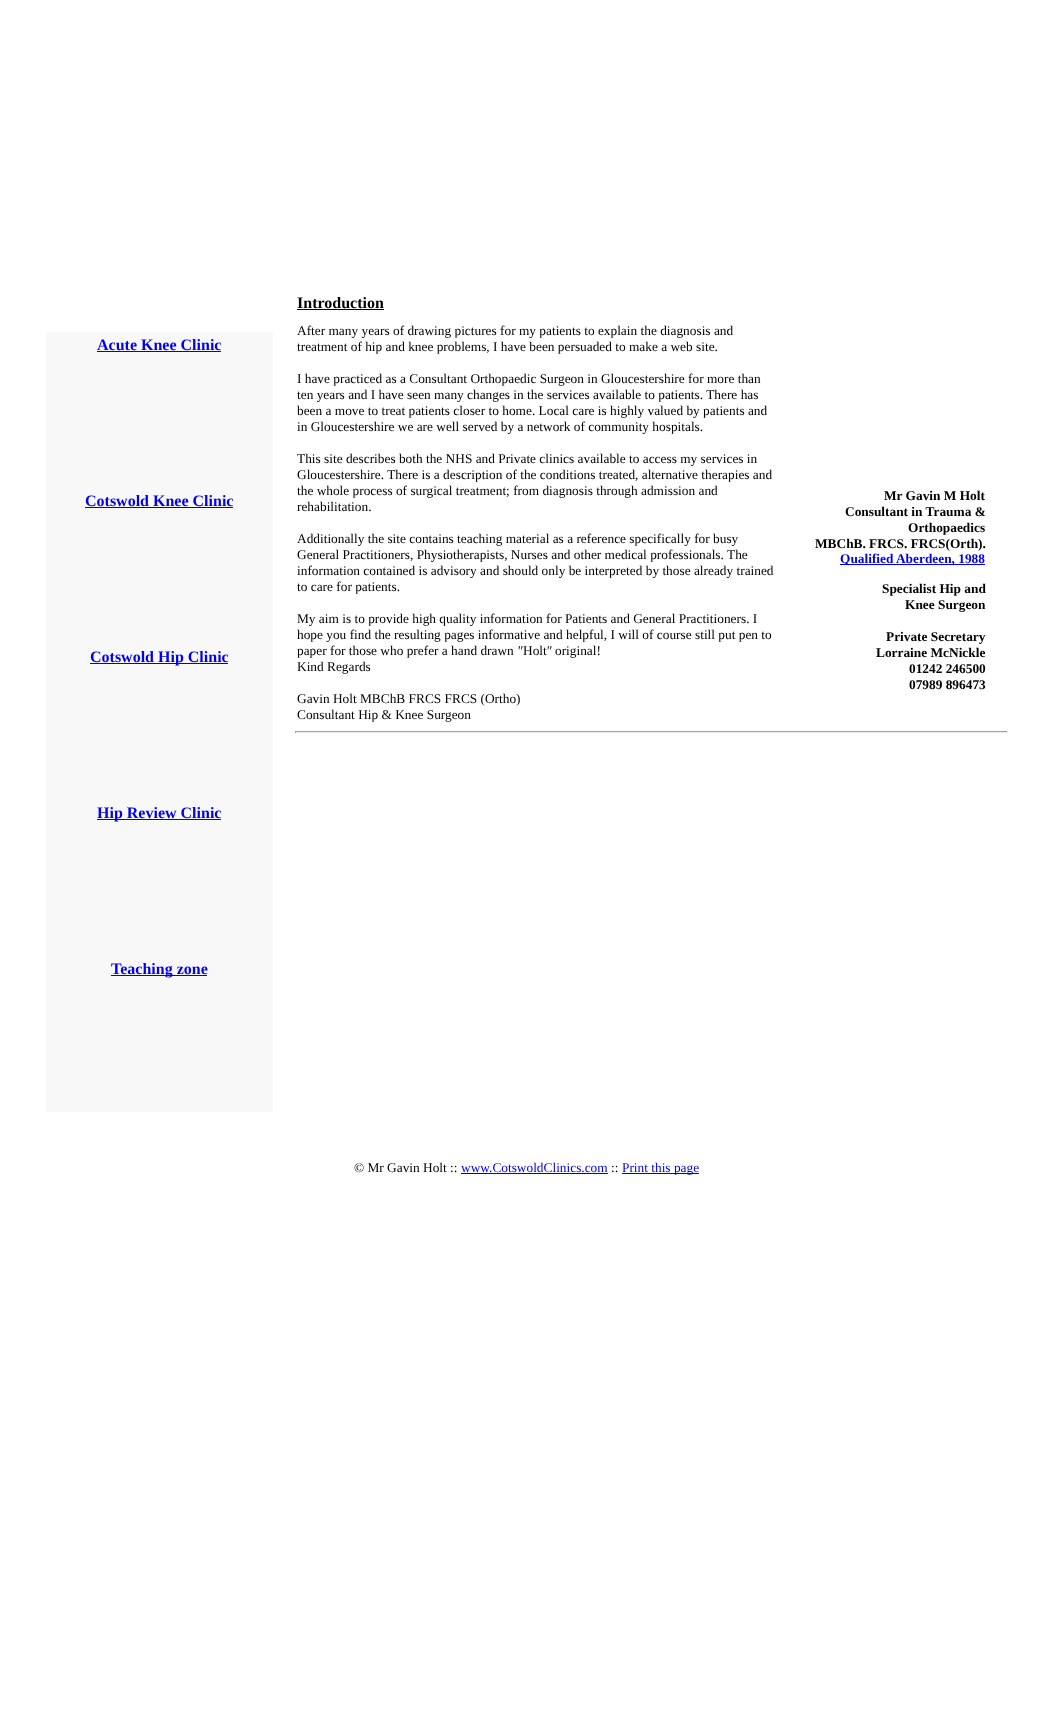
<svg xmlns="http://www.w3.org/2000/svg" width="1053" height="1710">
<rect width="100%" height="100%" fill="#fff"/>
<rect x="46" y="332" width="227" height="780" fill="#f9f8f9"/>
<text x="97" y="350" style="font-family:Liberation Serif;font-size:16px;font-weight:bold;fill:#00e">Acute Knee Clinic</text>
<rect x="97" y="351" width="124" height="1" fill="#00e"/>
<text x="85" y="506" style="font-family:Liberation Serif;font-size:16px;font-weight:bold;fill:#00e">Cotswold Knee Clinic</text>
<rect x="85" y="507" width="148" height="1" fill="#00e"/>
<rect x="90" y="663" width="138" height="1" fill="#00e"/>
<text x="90" y="662" style="font-family:Liberation Serif;font-size:16px;font-weight:bold;fill:#00e">Cotswold Hip Clinic</text>
<rect x="97" y="819" width="124" height="1" fill="#00e"/>
<text x="97" y="818" style="font-family:Liberation Serif;font-size:16px;font-weight:bold;fill:#00e">Hip Review Clinic</text>
<rect x="111" y="975" width="96" height="1" fill="#00e"/>
<text x="111" y="974" style="font-family:Liberation Serif;font-size:16px;font-weight:bold;fill:#00e">Teaching zone</text>
<text x="297" y="308" style="font-family:Liberation Serif;font-size:16px;font-weight:bold;fill:#000">Introduction</text>
<rect x="297" y="309" width="87" height="1" fill="#000"/>
<text x="297" y="335" style="font-family:Liberation Serif;font-size:13.35px;fill:#000">After many years of drawing pictures for my patients to explain the diagnosis and</text>
<text x="297" y="351" style="font-family:Liberation Serif;font-size:13.35px;fill:#000">treatment of hip and knee problems, I have been persuaded to make a web site.</text>
<text x="297" y="383" style="font-family:Liberation Serif;font-size:13.35px;fill:#000">I have practiced as a Consultant Orthopaedic Surgeon in Gloucestershire for more than</text>
<text x="297" y="399" style="font-family:Liberation Serif;font-size:13.35px;fill:#000">ten years and I have seen many changes in the services available to patients. There has</text>
<text x="297" y="415" style="font-family:Liberation Serif;font-size:13.35px;fill:#000">been a move to treat patients closer to home. Local care is highly valued by patients and</text>
<text x="297" y="431" style="font-family:Liberation Serif;font-size:13.35px;fill:#000">in Gloucestershire we are well served by a network of community hospitals.</text>
<text x="297" y="463" style="font-family:Liberation Serif;font-size:13.35px;fill:#000">This site describes both the NHS and Private clinics available to access my services in</text>
<text x="297" y="479" style="font-family:Liberation Serif;font-size:13.35px;fill:#000">Gloucestershire. There is a description of the conditions treated, alternative therapies and</text>
<text x="297" y="495" style="font-family:Liberation Serif;font-size:13.35px;fill:#000">the whole process of surgical treatment; from diagnosis through admission and</text>
<text x="297" y="511" style="font-family:Liberation Serif;font-size:13.35px;fill:#000">rehabilitation.</text>
<text x="297" y="543" style="font-family:Liberation Serif;font-size:13.35px;fill:#000">Additionally the site contains teaching material as a reference specifically for busy</text>
<text x="297" y="559" style="font-family:Liberation Serif;font-size:13.35px;fill:#000">General Practitioners, Physiotherapists, Nurses and other medical professionals. The</text>
<text x="297" y="575" style="font-family:Liberation Serif;font-size:13.35px;fill:#000">information contained is advisory and should only be interpreted by those already trained</text>
<text x="297" y="591" style="font-family:Liberation Serif;font-size:13.35px;fill:#000">to care for patients.</text>
<text x="297" y="623" style="font-family:Liberation Serif;font-size:13.35px;fill:#000">My aim is to provide high quality information for Patients and General Practitioners. I</text>
<text x="297" y="639" style="font-family:Liberation Serif;font-size:13.35px;fill:#000">hope you find the resulting pages informative and helpful, I will of course still put pen to</text>
<text x="297" y="655" style="font-family:Liberation Serif;font-size:13.35px;fill:#000">paper for those who prefer a hand drawn</text>
<text x="517" y="655" style="font-family:Liberation Serif;font-size:13.35px;font-style:italic;fill:#000">"</text>
<text x="523" y="655" style="font-family:Liberation Serif;font-size:13.35px;fill:#000">Holt</text>
<text x="546" y="655" style="font-family:Liberation Serif;font-size:13.35px;font-style:italic;fill:#000">"</text>
<text x="555" y="655" style="font-family:Liberation Serif;font-size:13.35px;fill:#000">original!</text>
<text x="297" y="671" style="font-family:Liberation Serif;font-size:13.35px;fill:#000">Kind Regards</text>
<text x="297" y="703" style="font-family:Liberation Serif;font-size:13.35px;fill:#000">Gavin Holt MBChB FRCS FRCS (Ortho)</text>
<text x="297" y="719" style="font-family:Liberation Serif;font-size:13.35px;fill:#000">Consultant Hip &amp; Knee Surgeon</text>
<text x="884" y="500" style="font-family:Liberation Serif;font-size:13.35px;font-weight:bold;fill:#000">Mr Gavin M Holt</text>
<text x="845" y="516" style="font-family:Liberation Serif;font-size:13.35px;font-weight:bold;fill:#000">Consultant in Trauma &amp;</text>
<text x="908" y="532" style="font-family:Liberation Serif;font-size:13.35px;font-weight:bold;fill:#000">Orthopaedics</text>
<text x="815" y="548" style="font-family:Liberation Serif;font-size:13.35px;font-weight:bold;fill:#000">MBChB. FRCS. FRCS(Orth).</text>
<rect x="840" y="564" width="145" height="1" fill="#00e"/>
<text x="840" y="563" style="font-family:Liberation Serif;font-size:13.35px;font-weight:bold;fill:#00e">Qualified Aberdeen, 1988</text>
<text x="882" y="593" style="font-family:Liberation Serif;font-size:13.35px;font-weight:bold;fill:#000">Specialist Hip and</text>
<text x="905" y="609" style="font-family:Liberation Serif;font-size:13.35px;font-weight:bold;fill:#000">Knee Surgeon</text>
<text x="886" y="641" style="font-family:Liberation Serif;font-size:13.35px;font-weight:bold;fill:#000">Private Secretary</text>
<text x="876" y="657" style="font-family:Liberation Serif;font-size:13.35px;font-weight:bold;fill:#000">Lorraine McNickle</text>
<text x="909" y="673" style="font-family:Liberation Serif;font-size:13.35px;font-weight:bold;fill:#000">01242 246500</text>
<text x="909" y="689" style="font-family:Liberation Serif;font-size:13.35px;font-weight:bold;fill:#000">07989 896473</text>
<rect x="295" y="731" width="713" height="1" fill="#9f9f9f"/>
<rect x="1007" y="731" width="1" height="2" fill="#eee"/>
<rect x="295" y="732" width="713" height="1" fill="#eee"/>
<rect x="295" y="731" width="1" height="2" fill="#9f9f9f"/>
<text x="354" y="1172" style="font-family:Liberation Serif;font-size:13.35px;fill:#000">© Mr Gavin Holt ::</text>
<text x="461" y="1172" style="font-family:Liberation Serif;font-size:13.35px;fill:#00e">www.CotswoldClinics.com</text>
<rect x="461" y="1173" width="147" height="1" fill="#00e"/>
<text x="611" y="1172" style="font-family:Liberation Serif;font-size:13.35px;fill:#000">::</text>
<rect x="622" y="1173" width="77" height="1" fill="#00e"/>
<text x="622" y="1172" style="font-family:Liberation Serif;font-size:13.35px;fill:#00e">Print this page</text>
</svg>
